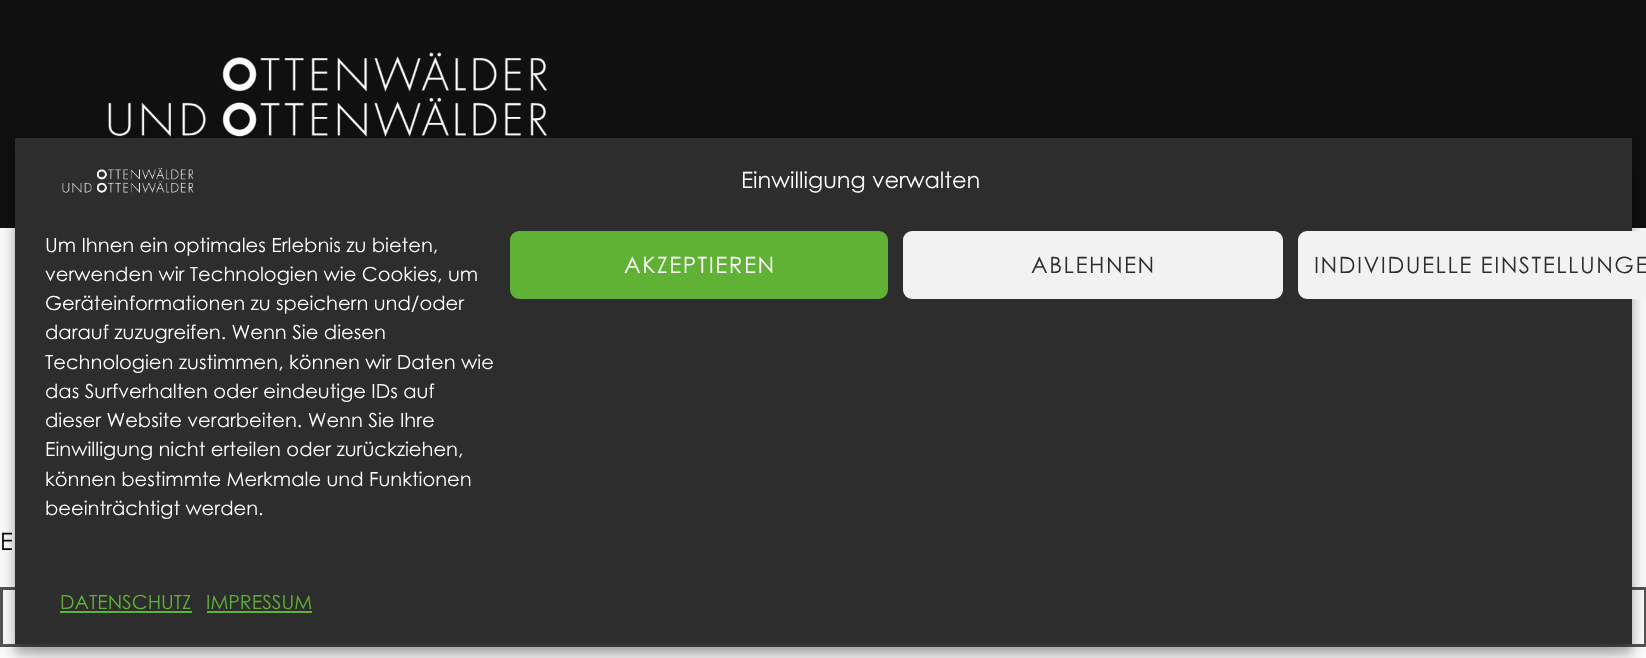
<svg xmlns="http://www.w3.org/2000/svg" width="1646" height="658">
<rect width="100%" height="100%" fill="#fff"/>
<rect width="1646" height="228" fill="#101010"/>
<image x="108" y="52" width="440" height="85" href="media/1.png"/>
<text x="0" y="550" style="font-family:Century Gothic;font-size:24px;fill:#000">E</text>
<rect x="1.5" y="588.5" width="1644" height="57" fill="none" stroke="#565555" stroke-width="3"/>
<rect x="1527.5" y="588.5" width="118" height="57" fill="none" stroke="#565555" stroke-width="3"/>
<rect x="15" y="147" width="1617" height="506" fill="#0000003b" filter="blur(4.5px)"/>
<rect x="15" y="153" width="1617" height="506" fill="#00000030" filter="blur(15px)"/>
<rect x="15" y="138" width="1617" height="506" fill="#2d2d2d"/>
<image x="62" y="168" width="132" height="25" href="media/2.png"/>
<text x="741" y="188" style="font-family:Century Gothic;font-size:22.5px;fill:#fff">Einwilligung verwalten</text>
<text x="45" y="252" style="font-family:Century Gothic;font-size:19.5px;fill:#fff">Um Ihnen ein optimales Erlebnis zu bieten,</text>
<text x="45" y="281" style="font-family:Century Gothic;font-size:19.5px;fill:#fff">verwenden wir Technologien wie Cookies, um</text>
<text x="45" y="310" style="font-family:Century Gothic;font-size:19.5px;fill:#fff">Geräteinformationen zu speichern und/oder</text>
<text x="45" y="339" style="font-family:Century Gothic;font-size:19.5px;fill:#fff">darauf zuzugreifen. Wenn Sie diesen</text>
<text x="45" y="369" style="font-family:Century Gothic;font-size:19.5px;fill:#fff">Technologien zustimmen, können wir Daten wie</text>
<text x="45" y="398" style="font-family:Century Gothic;font-size:19.5px;fill:#fff">das Surfverhalten oder eindeutige IDs auf</text>
<text x="45" y="427" style="font-family:Century Gothic;font-size:19.5px;fill:#fff">dieser Website verarbeiten. Wenn Sie Ihre</text>
<text x="45" y="456" style="font-family:Century Gothic;font-size:19.5px;fill:#fff">Einwilligung nicht erteilen oder zurückziehen,</text>
<text x="45" y="486" style="font-family:Century Gothic;font-size:19.5px;fill:#fff">können bestimmte Merkmale und Funktionen</text>
<text x="45" y="515" style="font-family:Century Gothic;font-size:19.5px;fill:#fff">beeinträchtigt werden.</text>
<rect x="511" y="232" width="376" height="66" rx="8" fill="#5fb233" stroke="#5fb233" stroke-width="2"/>
<text x="624" y="273" style="font-family:Century Gothic;font-size:22.5px;letter-spacing:1.5px;fill:#fff">AKZEPTIEREN</text>
<rect x="904" y="232" width="378" height="66" rx="8" fill="#f2f2f2" stroke="#f2f2f2" stroke-width="2"/>
<text x="1031" y="273" style="font-family:Century Gothic;font-size:22.5px;letter-spacing:1.5px;fill:#2d2d2d">ABLEHNEN</text>
<rect x="1299" y="232" width="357" height="66" rx="8" fill="#f2f2f2" stroke="#f2f2f2" stroke-width="2"/>
<text x="1314" y="273" style="font-family:Century Gothic;font-size:22.5px;letter-spacing:1.5px;fill:#2d2d2d">INDIVIDUELLE EINSTELLUNGE</text>
<text x="60" y="609" style="font-family:Century Gothic;font-size:19.5px;fill:#5fb233">DATENSCHUTZ</text>
<rect x="60" y="611" width="132" height="2" fill="#5fb233"/>
<text x="206" y="609" style="font-family:Century Gothic;font-size:19.5px;fill:#5fb233">IMPRESSUM</text>
<rect x="207" y="611" width="105" height="2" fill="#5fb233"/>
</svg>
